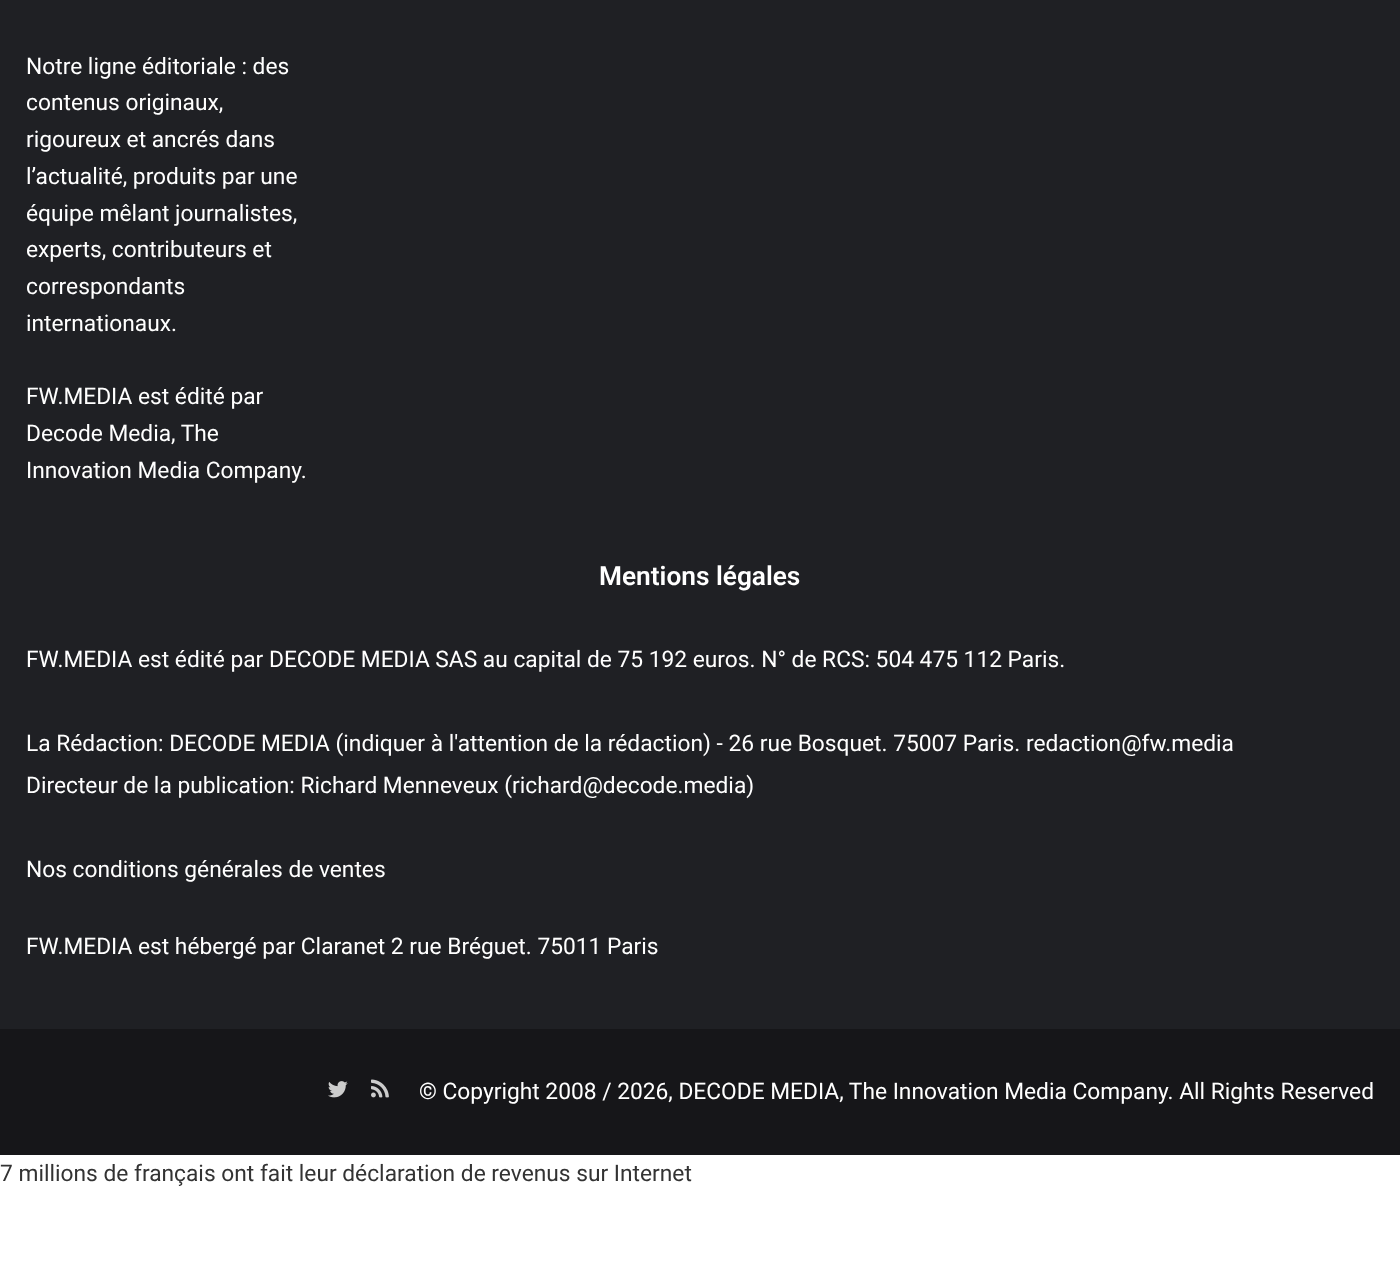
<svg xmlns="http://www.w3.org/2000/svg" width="1400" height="1286">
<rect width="100%" height="100%" fill="#fff"/>
<rect width="1400" height="1029" fill="#1f2024"/>
<text x="26" y="74" style="font-family:Roboto;font-size:22.75px;fill:#fff">Notre ligne éditoriale : des</text>
<text x="26" y="110" style="font-family:Roboto;font-size:22.75px;fill:#fff">contenus originaux,</text>
<text x="26" y="147" style="font-family:Roboto;font-size:22.75px;fill:#fff">rigoureux et ancrés dans</text>
<text x="26" y="184" style="font-family:Roboto;font-size:22.75px;fill:#fff">l’actualité, produits par une</text>
<text x="26" y="221" style="font-family:Roboto;font-size:22.75px;fill:#fff">équipe mêlant journalistes,</text>
<text x="26" y="257" style="font-family:Roboto;font-size:22.75px;fill:#fff">experts, contributeurs et</text>
<text x="26" y="294" style="font-family:Roboto;font-size:22.75px;fill:#fff">correspondants</text>
<text x="26" y="331" style="font-family:Roboto;font-size:22.75px;fill:#fff">internationaux.</text>
<text x="26" y="404" style="font-family:Roboto;font-size:22.75px;fill:#fff">FW.MEDIA est édité par</text>
<text x="26" y="441" style="font-family:Roboto;font-size:22.75px;fill:#fff">Decode Media, The</text>
<text x="26" y="478" style="font-family:Roboto;font-size:22.75px;fill:#fff">Innovation Media Company.</text>
<text x="599" y="585" style="font-family:Roboto;font-size:26.25px;font-weight:600;fill:#fff">Mentions légales</text>
<text x="26" y="667" style="font-family:Roboto;font-size:22.75px;fill:#fff">FW.MEDIA est édité par DECODE MEDIA SAS au capital de 75 192 euros. N° de RCS: 504 475 112 Paris.</text>
<text x="26" y="751" style="font-family:Roboto;font-size:22.75px;fill:#fff">La Rédaction: DECODE MEDIA (indiquer à l'attention de la rédaction) - 26 rue Bosquet. 75007 Paris. redaction@fw.media</text>
<text x="26" y="793" style="font-family:Roboto;font-size:22.75px;fill:#fff">Directeur de la publication: Richard Menneveux (richard@decode.media)</text>
<text x="26" y="877" style="font-family:Roboto;font-size:22.75px;fill:#fff">Nos conditions générales de ventes</text>
<text x="26" y="954" style="font-family:Roboto;font-size:22.75px;fill:#fff">FW.MEDIA est hébergé par Claranet 2 rue Bréguet. 75011 Paris</text>
<rect y="1029" width="1400" height="126" fill="#161619"/>
<image x="328" y="1081" width="20" height="17" href="media/1.png"/>
<image x="371" y="1079" width="18" height="19" href="media/2.png"/>
<text x="419" y="1099" style="font-family:Roboto;font-size:22.75px;fill:#fff">© Copyright 2008 / 2026, DECODE MEDIA, The Innovation Media Company. All Rights Reserved</text>
<text x="0" y="1181" style="font-family:Roboto;font-size:22.75px;fill:#333">7 millions de français ont fait leur déclaration de revenus sur Internet</text>
</svg>
